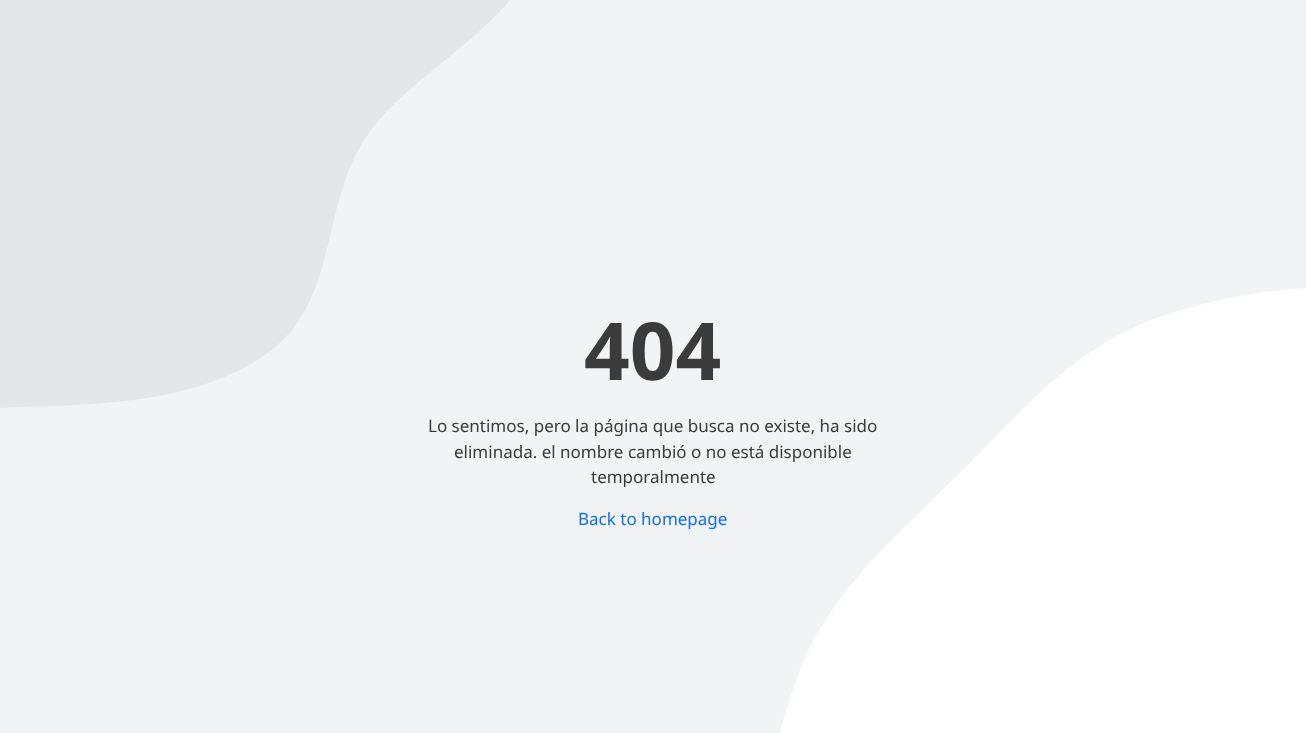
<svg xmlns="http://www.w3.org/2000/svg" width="1306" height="733">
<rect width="100%" height="100%" fill="#fff"/>
<image x="0" y="0" width="1306" height="733" href="media/1.png"/>
<text x="584" y="380" style="font-family:Noto Sans;font-size:80px;font-weight:bold;fill:#3b3b3b">404</text>
<text x="428" y="432" style="font-family:Noto Sans;font-size:17px;fill:#3b3b3b">Lo sentimos, pero la página que busca no existe, ha sido</text>
<text x="454" y="458" style="font-family:Noto Sans;font-size:17px;fill:#3b3b3b">eliminada. el nombre cambió o no está disponible</text>
<text x="591" y="483" style="font-family:Noto Sans;font-size:17px;fill:#3b3b3b">temporalmente</text>
<text x="578" y="525" style="font-family:Noto Sans;font-size:17px;fill:#0d6efd">Back to homepage</text>
</svg>
